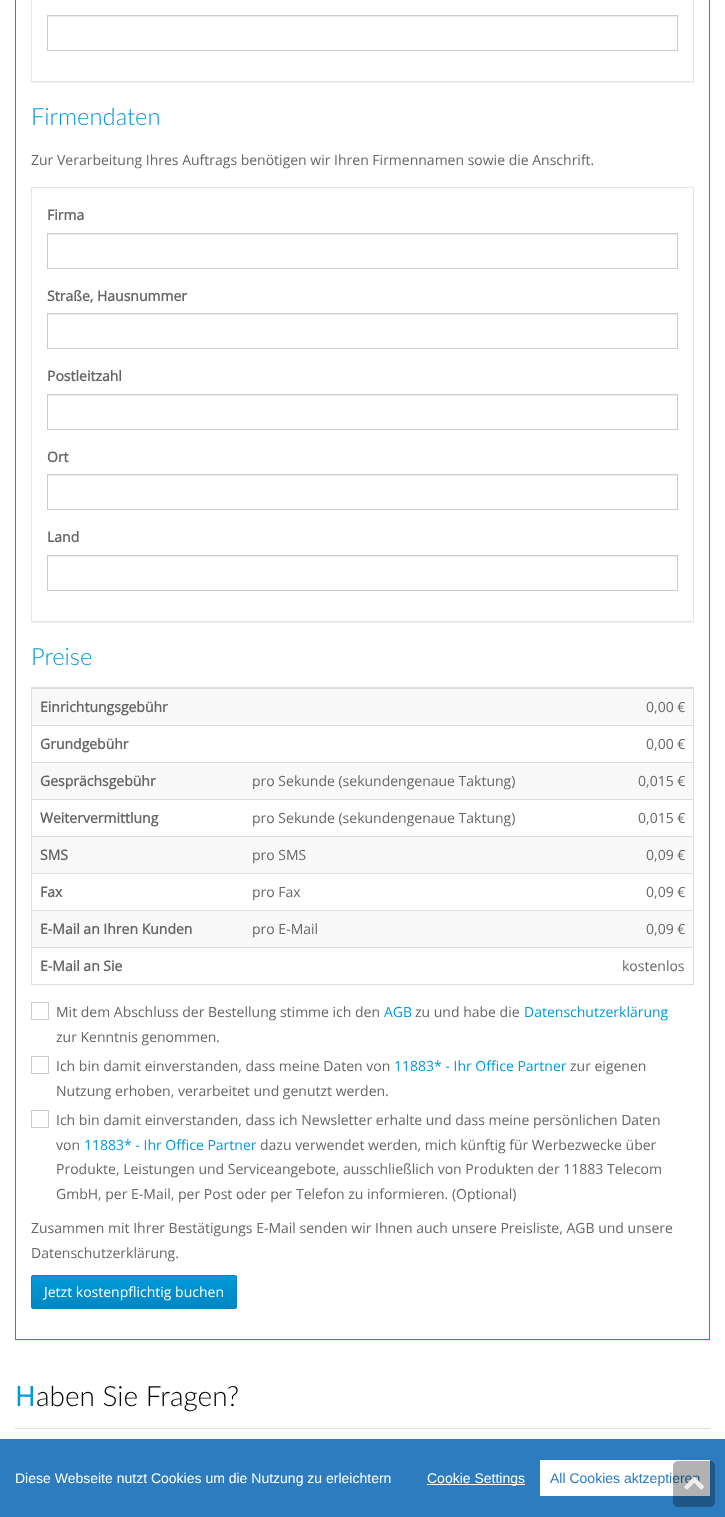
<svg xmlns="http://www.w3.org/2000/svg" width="725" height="1517">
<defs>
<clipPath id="clip1"><rect x="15" y="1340" width="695" height="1"/></clipPath>
<clipPath id="clip2"><rect x="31" y="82" width="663" height="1"/></clipPath>
<clipPath id="clip3"><rect x="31" y="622" width="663" height="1"/></clipPath>
<clipPath id="clip4"><rect x="31" y="1275" width="206" height="34" rx="2"/></clipPath>
<linearGradient id="g1" gradientUnits="userSpaceOnUse" x1="134" y1="1276" x2="134" y2="1308"><stop offset="0.05" stop-color="#0099da"/><stop offset="1" stop-color="#0087c1"/></linearGradient>
</defs>
<rect width="100%" height="100%" fill="#fff"/>
<g clip-path="url(#clip1)">
<rect x="15" y="-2" width="695" height="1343" fill="#0000000d" filter="blur(0.5px)"/>
</g>
<rect x="15.5" y="-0.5" width="694" height="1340" fill="none" stroke="#0099da"/>
<g clip-path="url(#clip2)">
<rect x="31" y="-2" width="663" height="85" fill="#0000000d" filter="blur(0.5px)"/>
</g>
<rect x="31.5" y="-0.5" width="662" height="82" fill="none" stroke="#e5e5e5"/>
<rect x="48" y="16" width="629" height="1" fill="#ececec"/>
<rect x="47.5" y="15.5" width="630" height="35" fill="none" stroke="#ccc"/>
<text x="31" y="125" style="font-family:Lato;font-size:23.75px;font-weight:300;fill:#0099da">Firmendaten</text>
<text x="31" y="165" style="font-family:Open Sans;font-size:14px;fill:#666">Zur Verarbeitung Ihres Auftrags benötigen wir Ihren Firmennamen sowie die Anschrift.</text>
<g clip-path="url(#clip3)">
<rect x="31" y="188" width="663" height="435" fill="#0000000d" filter="blur(0.5px)"/>
</g>
<rect x="31.5" y="187.5" width="662" height="434" fill="none" stroke="#e5e5e5"/>
<text x="47" y="220" style="font-family:Open Sans;font-size:14px;font-weight:bold;fill:#666">Firma</text>
<rect x="48" y="234" width="629" height="1" fill="#ececec"/>
<rect x="47.5" y="233.5" width="630" height="35" fill="none" stroke="#ccc"/>
<text x="47" y="301" style="font-family:Open Sans;font-size:14px;font-weight:bold;fill:#666">Straße, Hausnummer</text>
<rect x="48" y="314" width="629" height="1" fill="#ececec"/>
<rect x="47.5" y="313.5" width="630" height="35" fill="none" stroke="#ccc"/>
<text x="47" y="381" style="font-family:Open Sans;font-size:14px;font-weight:bold;fill:#666">Postleitzahl</text>
<rect x="48" y="395" width="629" height="1" fill="#ececec"/>
<rect x="47.5" y="394.5" width="630" height="35" fill="none" stroke="#ccc"/>
<text x="47" y="462" style="font-family:Open Sans;font-size:14px;font-weight:bold;fill:#666">Ort</text>
<rect x="48" y="475" width="629" height="1" fill="#ececec"/>
<rect x="47.5" y="474.5" width="630" height="35" fill="none" stroke="#ccc"/>
<text x="47" y="542" style="font-family:Open Sans;font-size:14px;font-weight:bold;fill:#666">Land</text>
<rect x="48" y="556" width="629" height="1" fill="#ececec"/>
<rect x="47.5" y="555.5" width="630" height="35" fill="none" stroke="#ccc"/>
<text x="31" y="665" style="font-family:Lato;font-size:23.75px;font-weight:300;fill:#0099da">Preise</text>
<rect x="31.5" y="687.5" width="662" height="297" fill="none" stroke="#ddd"/>
<rect x="32" y="689" width="661" height="36" fill="#f9f9f9"/>
<text x="40" y="712" style="font-family:Open Sans;font-size:14px;font-weight:bold;fill:#666">Einrichtungsgebühr</text>
<rect x="32" y="688" width="661" height="1" fill="#ddd"/>
<text x="646" y="712" style="font-family:Open Sans;font-size:14px;fill:#666">0,00 €</text>
<text x="40" y="749" style="font-family:Open Sans;font-size:14px;font-weight:bold;fill:#666">Grundgebühr</text>
<rect x="32" y="725" width="661" height="1" fill="#ddd"/>
<text x="646" y="749" style="font-family:Open Sans;font-size:14px;fill:#666">0,00 €</text>
<rect x="32" y="763" width="661" height="36" fill="#f9f9f9"/>
<text x="40" y="786" style="font-family:Open Sans;font-size:14px;font-weight:bold;fill:#666">Gesprächsgebühr</text>
<text x="252" y="786" style="font-family:Open Sans;font-size:14px;fill:#666">pro Sekunde (sekundengenaue Taktung)</text>
<rect x="32" y="762" width="661" height="1" fill="#ddd"/>
<text x="638" y="786" style="font-family:Open Sans;font-size:14px;fill:#666">0,015 €</text>
<text x="40" y="823" style="font-family:Open Sans;font-size:14px;font-weight:bold;fill:#666">Weitervermittlung</text>
<text x="252" y="823" style="font-family:Open Sans;font-size:14px;fill:#666">pro Sekunde (sekundengenaue Taktung)</text>
<rect x="32" y="799" width="661" height="1" fill="#ddd"/>
<text x="638" y="823" style="font-family:Open Sans;font-size:14px;fill:#666">0,015 €</text>
<rect x="32" y="837" width="661" height="36" fill="#f9f9f9"/>
<text x="40" y="860" style="font-family:Open Sans;font-size:14px;font-weight:bold;fill:#666">SMS</text>
<text x="252" y="860" style="font-family:Open Sans;font-size:14px;fill:#666">pro SMS</text>
<rect x="32" y="836" width="661" height="1" fill="#ddd"/>
<text x="646" y="860" style="font-family:Open Sans;font-size:14px;fill:#666">0,09 €</text>
<text x="40" y="897" style="font-family:Open Sans;font-size:14px;font-weight:bold;fill:#666">Fax</text>
<text x="252" y="897" style="font-family:Open Sans;font-size:14px;fill:#666">pro Fax</text>
<rect x="32" y="873" width="661" height="1" fill="#ddd"/>
<text x="646" y="897" style="font-family:Open Sans;font-size:14px;fill:#666">0,09 €</text>
<rect x="32" y="911" width="661" height="36" fill="#f9f9f9"/>
<text x="40" y="934" style="font-family:Open Sans;font-size:14px;font-weight:bold;fill:#666">E-Mail an Ihren Kunden</text>
<text x="252" y="934" style="font-family:Open Sans;font-size:14px;fill:#666">pro E-Mail</text>
<rect x="32" y="910" width="661" height="1" fill="#ddd"/>
<text x="646" y="934" style="font-family:Open Sans;font-size:14px;fill:#666">0,09 €</text>
<text x="40" y="971" style="font-family:Open Sans;font-size:14px;font-weight:bold;fill:#666">E-Mail an Sie</text>
<rect x="32" y="947" width="661" height="1" fill="#ddd"/>
<text x="622" y="971" style="font-family:Open Sans;font-size:14px;fill:#666">kostenlos</text>
<rect x="31.5" y="1002.5" width="17" height="17" fill="none" stroke="#ccc"/>
<text x="56" y="1017" style="font-family:Open Sans;font-size:14px;fill:#666">Mit dem Abschluss der Bestellung stimme ich den</text>
<text x="384" y="1017" style="font-family:Open Sans;font-size:14px;fill:#0099da">AGB</text>
<text x="415" y="1017" style="font-family:Open Sans;font-size:14px;fill:#666">zu und habe die</text>
<text x="524" y="1017" style="font-family:Open Sans;font-size:14px;fill:#0099da">Datenschutzerklärung</text>
<text x="56" y="1042" style="font-family:Open Sans;font-size:14px;fill:#666">zur Kenntnis genommen.</text>
<rect x="31.5" y="1056.5" width="17" height="17" fill="none" stroke="#ccc"/>
<text x="56" y="1071" style="font-family:Open Sans;font-size:14px;fill:#666">Ich bin damit einverstanden, dass meine Daten von</text>
<text x="394" y="1071" style="font-family:Open Sans;font-size:14px;fill:#0099da">11883* - Ihr Office Partner</text>
<text x="570" y="1071" style="font-family:Open Sans;font-size:14px;fill:#666">zur eigenen</text>
<text x="56" y="1096" style="font-family:Open Sans;font-size:14px;fill:#666">Nutzung erhoben, verarbeitet und genutzt werden.</text>
<rect x="31.5" y="1110.5" width="17" height="17" fill="none" stroke="#ccc"/>
<text x="56" y="1125" style="font-family:Open Sans;font-size:14px;fill:#666">Ich bin damit einverstanden, dass ich Newsletter erhalte und dass meine persönlichen Daten</text>
<text x="56" y="1150" style="font-family:Open Sans;font-size:14px;fill:#666">von</text>
<text x="84" y="1150" style="font-family:Open Sans;font-size:14px;fill:#0099da">11883* - Ihr Office Partner</text>
<text x="260" y="1150" style="font-family:Open Sans;font-size:14px;fill:#666">dazu verwendet werden, mich künftig für Werbezwecke über</text>
<text x="56" y="1174" style="font-family:Open Sans;font-size:14px;fill:#666">Produkte, Leistungen und Serviceangebote, ausschließlich von Produkten der 11883 Telecom</text>
<text x="56" y="1199" style="font-family:Open Sans;font-size:14px;fill:#666">GmbH, per E-Mail, per Post oder per Telefon zu informieren. (Optional)</text>
<text x="31" y="1233" style="font-family:Open Sans;font-size:14px;fill:#666">Zusammen mit Ihrer Bestätigungs E-Mail senden wir Ihnen auch unsere Preisliste, AGB und unsere</text>
<text x="31" y="1258" style="font-family:Open Sans;font-size:14px;fill:#666">Datenschutzerklärung.</text>
<g clip-path="url(#clip4)">
<rect x="31" y="1276" width="206" height="32" fill="url(#g1)"/>
</g>
<rect x="31.5" y="1275.5" width="205" height="33" rx="1.5" fill="none" stroke="#0087c1"/>
<text x="44" y="1297" style="font-family:Open Sans;font-size:14px;fill:#fff">Jetzt kostenpflichtig buchen</text>
<rect x="15" y="1428" width="695" height="1" fill="#ddd"/>
<text x="15" y="1406" style="font-family:Noto Sans;font-size:28px;fill:#0099da">H</text>
<text x="36" y="1406" style="font-family:Lato;font-size:28px;font-weight:300;fill:#000">aben Sie Fragen?</text>
<rect y="1439" width="725" height="78" fill="#2c7cbf"/>
<rect x="540" y="1460" width="170" height="36" fill="#fff"/>
<text x="550" y="1483" style="font-family:Liberation Sans;font-size:14px;fill:#2c7cbf">All Cookies aktzeptieren</text>
<rect x="673" y="1461" width="42" height="46" rx="5" fill="#0000004d"/>
<image x="684" y="1476" width="21" height="14" href="media/1.png"/>
<text x="15" y="1483" style="font-family:Liberation Sans;font-size:14px;fill:#fff">Diese Webseite nutzt Cookies um die Nutzung zu erleichtern</text>
<rect x="427" y="1484" width="98" height="1" fill="#fff"/>
<text x="427" y="1483" style="font-family:Liberation Sans;font-size:14px;fill:#fff">Cookie Settings</text>
</svg>
